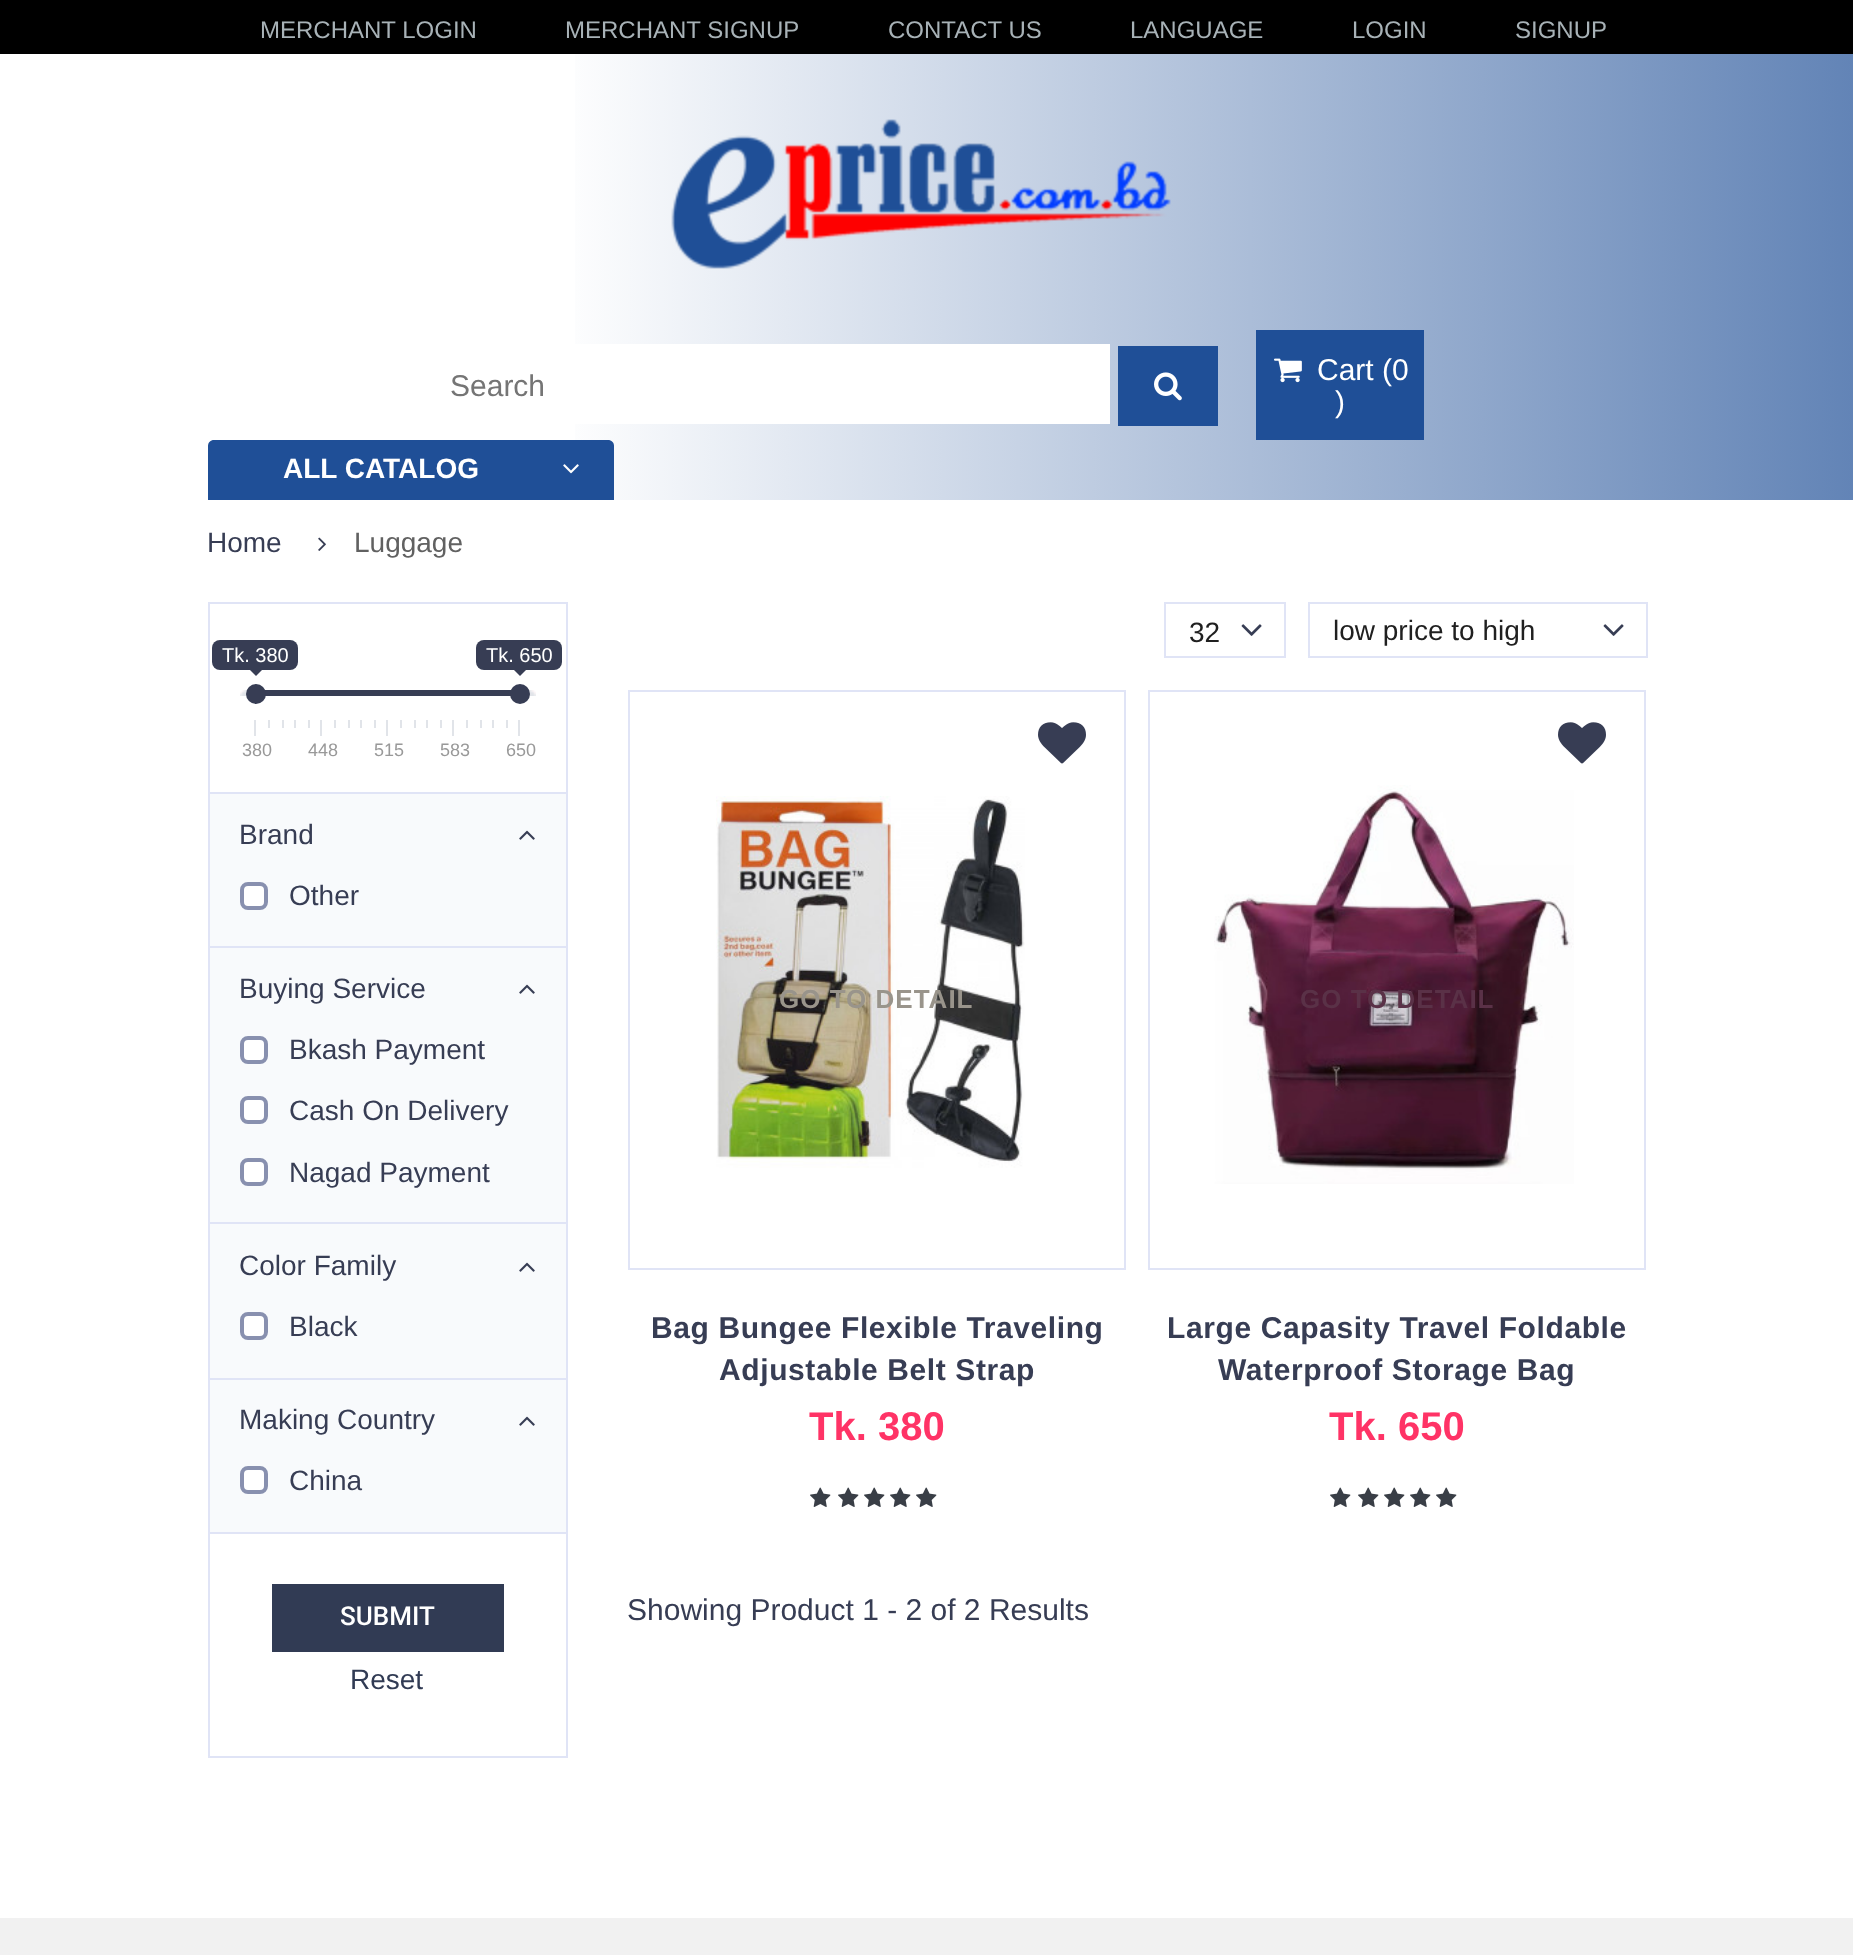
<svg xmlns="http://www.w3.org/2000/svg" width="1853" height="1955">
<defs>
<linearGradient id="g1" gradientUnits="userSpaceOnUse" x1="0" y1="277" x2="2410" y2="277"><stop offset="0.23" stop-color="#fff"/><stop offset="1" stop-color="#1f4f97"/><stop offset="1" stop-color="#e8214c"/></linearGradient>
</defs>
<rect width="100%" height="100%" fill="#fff"/>
<rect width="1853" height="54" fill="#000"/>
<text x="260" y="38" style="font-family:Liberation Sans;font-size:24px;fill:#a8b2b7">MERCHANT LOGIN</text>
<text x="565" y="38" style="font-family:Liberation Sans;font-size:24px;fill:#a8b2b7">MERCHANT SIGNUP</text>
<text x="888" y="38" style="font-family:Liberation Sans;font-size:24px;fill:#a8b2b7">CONTACT US</text>
<text x="1130" y="38" style="font-family:Liberation Sans;font-size:24px;fill:#a8b2b7">LANGUAGE</text>
<text x="1352" y="38" style="font-family:Liberation Sans;font-size:24px;fill:#a8b2b7">LOGIN</text>
<text x="1515" y="38" style="font-family:Liberation Sans;font-size:24px;fill:#a8b2b7">SIGNUP</text>
<rect x="575" y="54" width="1278" height="446" fill="url(#g1)"/>
<image x="671" y="119" width="500" height="150" href="media/1.png"/>
<rect x="575" y="344" width="535" height="80" fill="#fff"/>
<text x="450" y="396" style="font-family:Liberation Sans;font-size:30px;fill:#757575">Search</text>
<rect x="1118" y="346" width="100" height="80" fill="#1f4f97"/>
<image x="1154" y="372" width="28" height="29" href="media/2.png"/>
<rect x="1256" y="330" width="168" height="110" fill="#1f4f97"/>
<image x="1274" y="358" width="28" height="25" href="media/3.png"/>
<text x="1317" y="380" style="font-family:Liberation Sans;font-size:30px;fill:#fff">Cart (0</text>
<text x="1335" y="412" style="font-family:Liberation Sans;font-size:30px;fill:#fff">)</text>
<path d="M214 440h394c3.5 0 6 2.5 6 6v54h-406v-54c0-3.5 2.5-6 6-6z" fill="#1f4f97"/>
<text x="283" y="478" style="font-family:Liberation Sans;font-size:28px;font-weight:bold;fill:#fff">ALL CATALOG</text>
<image x="563" y="464" width="16" height="10" href="media/4.png"/>
<text x="207" y="552" style="font-family:Liberation Sans;font-size:28px;fill:#373d54">Home</text>
<image x="318" y="537" width="8" height="14" href="media/5.png"/>
<text x="354" y="552" style="font-family:Liberation Sans;font-size:28px;fill:#616161">Luggage</text>
<rect x="209" y="603" width="358" height="1154" fill="none" stroke="#e0e4f6" stroke-width="2"/>
<rect x="210" y="792" width="356" height="2" fill="#e0e4f6"/>
<rect x="212" y="640" width="86" height="30" rx="8" fill="#373d54"/>
<text x="222" y="662" style="font-family:Liberation Sans;font-size:20px;fill:#fff">Tk. 380</text>
<path d="M250 670h12l-6 6z" fill="#373d54"/>
<rect x="476" y="640" width="86" height="30" rx="8" fill="#373d54"/>
<text x="486" y="662" style="font-family:Liberation Sans;font-size:20px;fill:#fff">Tk. 650</text>
<path d="M514 670h12l-6 6z" fill="#373d54"/>
<image x="240" y="690" width="7" height="6" href="media/6.png"/>
<image x="529" y="690" width="7" height="6" href="media/7.png"/>
<rect x="265" y="690" width="246" height="6" fill="#373d54"/>
<circle cx="256" cy="694" r="10" fill="#373d54"/>
<circle cx="520" cy="694" r="10" fill="#373d54"/>
<rect x="254" y="720" width="2" height="16" fill="#e1e4e9"/>
<rect x="268" y="720" width="2" height="8" fill="#e1e4e9"/>
<rect x="282" y="720" width="2" height="8" fill="#e1e4e9"/>
<rect x="294" y="720" width="2" height="8" fill="#e1e4e9"/>
<rect x="308" y="720" width="2" height="8" fill="#e1e4e9"/>
<rect x="320" y="720" width="2" height="16" fill="#e1e4e9"/>
<rect x="334" y="720" width="2" height="8" fill="#e1e4e9"/>
<rect x="348" y="720" width="2" height="8" fill="#e1e4e9"/>
<rect x="360" y="720" width="2" height="8" fill="#e1e4e9"/>
<rect x="374" y="720" width="2" height="8" fill="#e1e4e9"/>
<rect x="386" y="720" width="2" height="16" fill="#e1e4e9"/>
<rect x="400" y="720" width="2" height="8" fill="#e1e4e9"/>
<rect x="414" y="720" width="2" height="8" fill="#e1e4e9"/>
<rect x="426" y="720" width="2" height="8" fill="#e1e4e9"/>
<rect x="440" y="720" width="2" height="8" fill="#e1e4e9"/>
<rect x="452" y="720" width="2" height="16" fill="#e1e4e9"/>
<rect x="466" y="720" width="2" height="8" fill="#e1e4e9"/>
<rect x="480" y="720" width="2" height="8" fill="#e1e4e9"/>
<rect x="492" y="720" width="2" height="8" fill="#e1e4e9"/>
<rect x="506" y="720" width="2" height="8" fill="#e1e4e9"/>
<rect x="518" y="720" width="2" height="16" fill="#e1e4e9"/>
<text x="242" y="756" style="font-family:Liberation Sans;font-size:18px;fill:#999">380</text>
<text x="308" y="756" style="font-family:Liberation Sans;font-size:18px;fill:#999">448</text>
<text x="374" y="756" style="font-family:Liberation Sans;font-size:18px;fill:#999">515</text>
<text x="440" y="756" style="font-family:Liberation Sans;font-size:18px;fill:#999">583</text>
<text x="506" y="756" style="font-family:Liberation Sans;font-size:18px;fill:#999">650</text>
<rect x="210" y="794" width="356" height="152" fill="#f8fafc"/>
<rect x="210" y="946" width="356" height="2" fill="#e0e4f6"/>
<text x="239" y="844" style="font-family:Liberation Sans;font-size:28px;fill:#373d54">Brand</text>
<image x="519" y="830" width="16" height="10" href="media/8.png"/>
<rect x="242" y="884" width="24" height="24" rx="6" fill="#fff" stroke="#8890af" stroke-width="4"/>
<text x="289" y="905" style="font-family:Liberation Sans;font-size:28px;fill:#373d54">Other</text>
<rect x="210" y="948" width="356" height="274" fill="#f8fafc"/>
<rect x="210" y="1222" width="356" height="2" fill="#e0e4f6"/>
<text x="239" y="998" style="font-family:Liberation Sans;font-size:28px;fill:#373d54">Buying Service</text>
<image x="519" y="984" width="16" height="10" href="media/8.png"/>
<rect x="242" y="1038" width="24" height="24" rx="6" fill="#fff" stroke="#8890af" stroke-width="4"/>
<text x="289" y="1059" style="font-family:Liberation Sans;font-size:28px;fill:#373d54">Bkash Payment</text>
<rect x="242" y="1098" width="24" height="24" rx="6" fill="#fff" stroke="#8890af" stroke-width="4"/>
<text x="289" y="1120" style="font-family:Liberation Sans;font-size:28px;fill:#373d54">Cash On Delivery</text>
<rect x="242" y="1160" width="24" height="24" rx="6" fill="#fff" stroke="#8890af" stroke-width="4"/>
<text x="289" y="1182" style="font-family:Liberation Sans;font-size:28px;fill:#373d54">Nagad Payment</text>
<rect x="210" y="1224" width="356" height="154" fill="#f8fafc"/>
<rect x="210" y="1378" width="356" height="2" fill="#e0e4f6"/>
<text x="239" y="1275" style="font-family:Liberation Sans;font-size:28px;fill:#373d54">Color Family</text>
<image x="519" y="1262" width="16" height="10" href="media/8.png"/>
<rect x="242" y="1314" width="24" height="24" rx="6" fill="#fff" stroke="#8890af" stroke-width="4"/>
<text x="289" y="1336" style="font-family:Liberation Sans;font-size:28px;fill:#373d54">Black</text>
<rect x="210" y="1380" width="356" height="152" fill="#f8fafc"/>
<rect x="210" y="1532" width="356" height="2" fill="#e0e4f6"/>
<text x="239" y="1429" style="font-family:Liberation Sans;font-size:28px;fill:#373d54">Making Country</text>
<image x="519" y="1416" width="16" height="10" href="media/8.png"/>
<rect x="242" y="1468" width="24" height="24" rx="6" fill="#fff" stroke="#8890af" stroke-width="4"/>
<text x="289" y="1490" style="font-family:Liberation Sans;font-size:28px;fill:#373d54">China</text>
<rect x="272" y="1584" width="232" height="68" fill="#313b54"/>
<text x="340" y="1625" style="font-family:Roboto;font-size:26px;font-weight:500;fill:#fff">SUBMIT</text>
<text x="350" y="1689" style="font-family:Liberation Sans;font-size:28px;fill:#313b54">Reset</text>
<rect x="1165" y="603" width="120" height="54" fill="none" stroke="#e0e4f6" stroke-width="2"/>
<text x="1189" y="642" style="font-family:Liberation Sans;font-size:28px;fill:#202020">32</text>
<image x="1241" y="624" width="21" height="12" href="media/9.png"/>
<rect x="1309" y="603" width="338" height="54" fill="none" stroke="#e0e4f6" stroke-width="2"/>
<text x="1333" y="640" style="font-family:Liberation Sans;font-size:28px;fill:#202020">low price to high</text>
<image x="1603" y="624" width="21" height="12" href="media/9.png"/>
<rect x="629" y="691" width="496" height="578" fill="none" stroke="#e0e4f6" stroke-width="2"/>
<image x="1038" y="722" width="48" height="42" href="media/10.png"/>
<image x="716" y="796" width="309" height="372" href="media/11.png"/>
<text x="779" y="1008" style="font-family:Liberation Sans;font-size:26px;font-weight:bold;letter-spacing:1px;fill:#99948b">GO TO DETAIL</text>
<text x="651" y="1338" style="font-family:Liberation Sans;font-size:30px;font-weight:bold;letter-spacing:0.6px;fill:#373d54">Bag Bungee Flexible Traveling</text>
<text x="719" y="1380" style="font-family:Liberation Sans;font-size:30px;font-weight:bold;letter-spacing:0.6px;fill:#373d54">Adjustable Belt Strap</text>
<text x="809" y="1440" style="font-family:Liberation Sans;font-size:40px;font-weight:bold;fill:#f36">Tk. 380</text>
<image x="810" y="1487" width="21" height="20" href="media/12.png"/>
<image x="838" y="1487" width="21" height="20" href="media/12.png"/>
<image x="864" y="1487" width="21" height="20" href="media/12.png"/>
<image x="890" y="1487" width="21" height="20" href="media/12.png"/>
<image x="916" y="1487" width="21" height="20" href="media/12.png"/>
<rect x="1149" y="691" width="496" height="578" fill="none" stroke="#e0e4f6" stroke-width="2"/>
<image x="1558" y="722" width="48" height="42" href="media/10.png"/>
<image x="1214" y="785" width="360" height="399" href="media/13.png"/>
<text x="1300" y="1008" style="font-family:Liberation Sans;font-size:26px;font-weight:bold;letter-spacing:1px;fill:#5a3147">GO TO DETAIL</text>
<text x="1167" y="1338" style="font-family:Liberation Sans;font-size:30px;font-weight:bold;letter-spacing:0.6px;fill:#373d54">Large Capasity Travel Foldable</text>
<text x="1218" y="1380" style="font-family:Liberation Sans;font-size:30px;font-weight:bold;letter-spacing:0.6px;fill:#373d54">Waterproof Storage Bag</text>
<text x="1329" y="1440" style="font-family:Liberation Sans;font-size:40px;font-weight:bold;fill:#f36">Tk. 650</text>
<image x="1330" y="1487" width="21" height="20" href="media/12.png"/>
<image x="1358" y="1487" width="21" height="20" href="media/12.png"/>
<image x="1384" y="1487" width="21" height="20" href="media/12.png"/>
<image x="1410" y="1487" width="21" height="20" href="media/12.png"/>
<image x="1436" y="1487" width="21" height="20" href="media/12.png"/>
<text x="627" y="1620" style="font-family:Liberation Sans;font-size:30px;fill:#373d54">Showing Product 1 - 2 of 2 Results</text>
<rect y="1918" width="1853" height="37" fill="#f1f1f1"/>
</svg>
